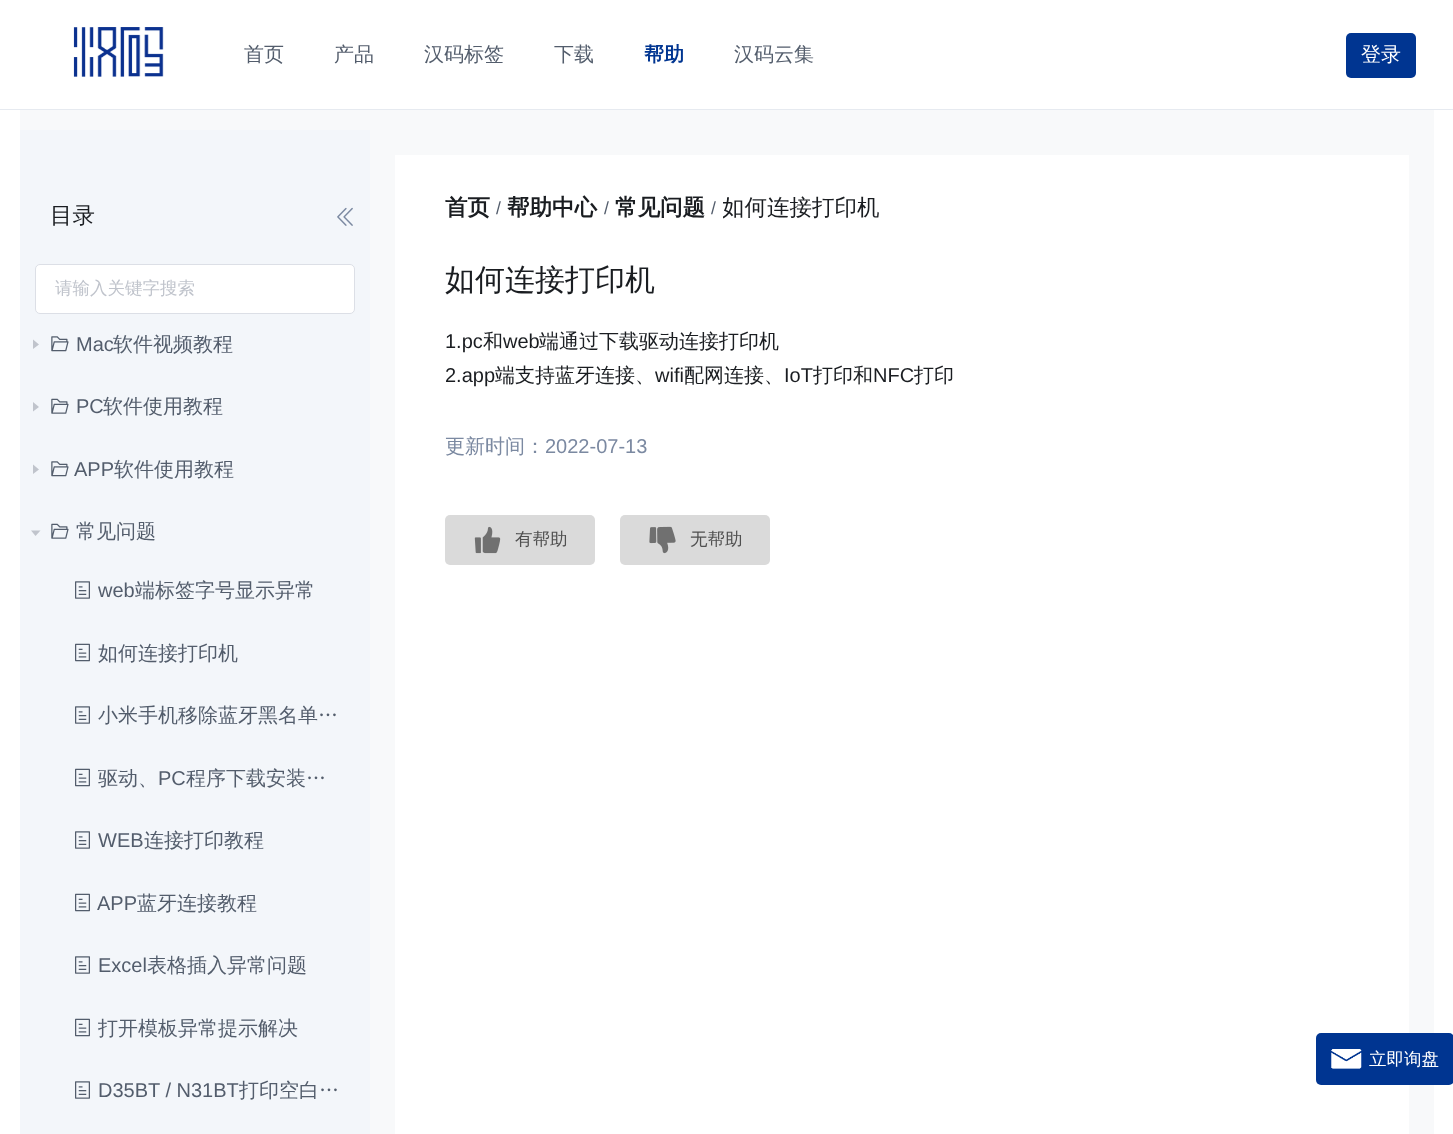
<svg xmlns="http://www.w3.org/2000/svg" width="1453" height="1134">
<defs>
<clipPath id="clip1"><rect x="723" y="193" width="157" height="30"/></clipPath>
</defs>
<rect width="100%" height="100%" fill="#fff"/>
<rect y="109" width="1453" height="1" fill="#e6eaf0"/>
<image x="73" y="27" width="91" height="50" href="media/1.png"/>
<text x="244" y="61" style="font-family:WenQuanYi Zen Hei;font-size:20px;font-weight:500;fill:#535d6c">首页</text>
<text x="334" y="61" style="font-family:WenQuanYi Zen Hei;font-size:20px;font-weight:500;fill:#535d6c">产品</text>
<text x="424" y="61" style="font-family:WenQuanYi Zen Hei;font-size:20px;font-weight:500;fill:#535d6c">汉码标签</text>
<text x="554" y="61" style="font-family:WenQuanYi Zen Hei;font-size:20px;font-weight:500;fill:#535d6c">下载</text>
<text x="644" y="61" style="font-family:WenQuanYi Zen Hei;font-size:20px;font-weight:bold;fill:#003591">帮助</text>
<text x="734" y="61" style="font-family:WenQuanYi Zen Hei;font-size:20px;font-weight:500;fill:#535d6c">汉码云集</text>
<rect x="1346" y="33" width="70" height="45" rx="5" fill="#003591"/>
<text x="1361" y="61" style="font-family:WenQuanYi Zen Hei;font-size:20px;font-weight:500;fill:#fff">登录</text>
<rect x="20" y="110" width="1414" height="1024" fill="#f8f9fa"/>
<rect x="20" y="130" width="350" height="1004" fill="#f3f6fa"/>
<text x="50" y="223" style="font-family:WenQuanYi Zen Hei;font-size:22.5px;font-weight:500;fill:#1a1d21">目录</text>
<image x="337" y="207" width="16" height="19" href="media/2.png"/>
<rect x="35.5" y="264.5" width="319" height="49" rx="4.5" fill="#fff" stroke="#dcdfe6"/>
<text x="55" y="294" style="font-family:WenQuanYi Zen Hei;font-size:17.5px;font-weight:500;fill:#c0c4cc">请输入关键字搜索</text>
<path d="M33 339.5v9.5l6-4.5z" fill="#c0c4cc"/>
<image x="51" y="336" width="18" height="16" href="media/3.png"/>
<text x="76" y="351" style="font-family:Liberation Sans;font-size:20px;fill:#535d6c">Mac</text>
<text x="113" y="351" style="font-family:WenQuanYi Zen Hei;font-size:20px;font-weight:500;fill:#535d6c">软件视频教程</text>
<path d="M33 402v9.5l6-4.5z" fill="#c0c4cc"/>
<image x="51" y="398" width="18" height="16" href="media/4.png"/>
<text x="76" y="413" style="font-family:Liberation Sans;font-size:20px;fill:#535d6c">PC</text>
<text x="103" y="413" style="font-family:WenQuanYi Zen Hei;font-size:20px;font-weight:500;fill:#535d6c">软件使用教程</text>
<path d="M33 464.5v9.5l6-4.5z" fill="#c0c4cc"/>
<image x="51" y="461" width="18" height="16" href="media/3.png"/>
<text x="74" y="476" style="font-family:Liberation Sans;font-size:20px;fill:#535d6c">APP</text>
<text x="114" y="476" style="font-family:WenQuanYi Zen Hei;font-size:20px;font-weight:500;fill:#535d6c">软件使用教程</text>
<path d="M40.5 530.5h-9.5l4.5 5.5z" fill="#c0c4cc"/>
<image x="51" y="523" width="18" height="16" href="media/4.png"/>
<text x="76" y="538" style="font-family:WenQuanYi Zen Hei;font-size:20px;font-weight:500;fill:#535d6c">常见问题</text>
<image x="75" y="581" width="15" height="18" href="media/5.png"/>
<text x="98" y="597" style="font-family:Liberation Sans;font-size:20px;fill:#535d6c">web</text>
<text x="135" y="597" style="font-family:WenQuanYi Zen Hei;font-size:20px;font-weight:500;fill:#535d6c">端标签字号显示异常</text>
<image x="75" y="643" width="15" height="19" href="media/6.png"/>
<text x="98" y="660" style="font-family:WenQuanYi Zen Hei;font-size:20px;font-weight:500;fill:#535d6c">如何连接打印机</text>
<image x="75" y="706" width="15" height="18" href="media/5.png"/>
<text x="98" y="722" style="font-family:WenQuanYi Zen Hei;font-size:20px;font-weight:500;fill:#535d6c">小米手机移除蓝牙黑名单…</text>
<image x="75" y="768" width="15" height="19" href="media/6.png"/>
<text x="98" y="785" style="font-family:WenQuanYi Zen Hei;font-size:20px;font-weight:500;fill:#535d6c">驱动、</text>
<text x="158" y="785" style="font-family:Liberation Sans;font-size:20px;fill:#535d6c">PC</text>
<text x="186" y="785" style="font-family:WenQuanYi Zen Hei;font-size:20px;font-weight:500;fill:#535d6c">程序下载安装…</text>
<image x="75" y="831" width="15" height="18" href="media/5.png"/>
<text x="98" y="847" style="font-family:Liberation Sans;font-size:20px;fill:#535d6c">WEB</text>
<text x="144" y="847" style="font-family:WenQuanYi Zen Hei;font-size:20px;font-weight:500;fill:#535d6c">连接打印教程</text>
<image x="75" y="893" width="15" height="19" href="media/6.png"/>
<text x="97" y="910" style="font-family:Liberation Sans;font-size:20px;fill:#535d6c">APP</text>
<text x="137" y="910" style="font-family:WenQuanYi Zen Hei;font-size:20px;font-weight:500;fill:#535d6c">蓝牙连接教程</text>
<image x="75" y="956" width="15" height="18" href="media/5.png"/>
<text x="98" y="972" style="font-family:Liberation Sans;font-size:20px;fill:#535d6c">Excel</text>
<text x="147" y="972" style="font-family:WenQuanYi Zen Hei;font-size:20px;font-weight:500;fill:#535d6c">表格插入异常问题</text>
<image x="75" y="1018" width="15" height="19" href="media/6.png"/>
<text x="98" y="1035" style="font-family:WenQuanYi Zen Hei;font-size:20px;font-weight:500;fill:#535d6c">打开模板异常提示解决</text>
<image x="75" y="1081" width="15" height="18" href="media/5.png"/>
<text x="98" y="1097" style="font-family:Liberation Sans;font-size:20px;fill:#535d6c">D35BT / N31BT</text>
<text x="239" y="1097" style="font-family:WenQuanYi Zen Hei;font-size:20px;font-weight:500;fill:#535d6c">打印空白…</text>
<rect x="395" y="155" width="1014" height="979" fill="#fff"/>
<text x="445" y="215" style="font-family:WenQuanYi Zen Hei;font-size:22.5px;font-weight:bold;fill:#1a1d21">首页</text>
<text x="496" y="214" style="font-family:Liberation Sans;font-size:17.5px;fill:#535d6c">/</text>
<text x="507" y="215" style="font-family:WenQuanYi Zen Hei;font-size:22.5px;font-weight:bold;fill:#1a1d21">帮助中心</text>
<text x="604" y="214" style="font-family:Liberation Sans;font-size:17.5px;fill:#535d6c">/</text>
<text x="615" y="215" style="font-family:WenQuanYi Zen Hei;font-size:22.5px;font-weight:bold;fill:#1a1d21">常见问题</text>
<text x="711" y="214" style="font-family:Liberation Sans;font-size:17.5px;fill:#535d6c">/</text>
<g clip-path="url(#clip1)">
<text x="722" y="215" style="font-family:WenQuanYi Zen Hei;font-size:22.5px;font-weight:500;fill:#1a1d21">如何连接打印机</text>
</g>
<text x="445" y="290" style="font-family:WenQuanYi Zen Hei;font-size:30px;font-weight:500;fill:#1a1d21">如何连接打印机</text>
<text x="445" y="348" style="font-family:Liberation Sans;font-size:20px;fill:#1a1d21">1.pc</text>
<text x="483" y="348" style="font-family:WenQuanYi Zen Hei;font-size:20px;font-weight:500;fill:#1a1d21">和</text>
<text x="503" y="348" style="font-family:Liberation Sans;font-size:20px;fill:#1a1d21">web</text>
<text x="539" y="348" style="font-family:WenQuanYi Zen Hei;font-size:20px;font-weight:500;fill:#1a1d21">端通过下载驱动连接打印机</text>
<text x="445" y="382" style="font-family:Liberation Sans;font-size:20px;fill:#1a1d21">2.app</text>
<text x="495" y="382" style="font-family:WenQuanYi Zen Hei;font-size:20px;font-weight:500;fill:#1a1d21">端支持蓝牙连接、</text>
<text x="655" y="382" style="font-family:Liberation Sans;font-size:20px;fill:#1a1d21">wifi</text>
<text x="684" y="382" style="font-family:WenQuanYi Zen Hei;font-size:20px;font-weight:500;fill:#1a1d21">配网连接、</text>
<text x="784" y="382" style="font-family:Liberation Sans;font-size:20px;fill:#1a1d21">IoT</text>
<text x="813" y="382" style="font-family:WenQuanYi Zen Hei;font-size:20px;font-weight:500;fill:#1a1d21">打印和</text>
<text x="873" y="382" style="font-family:Liberation Sans;font-size:20px;fill:#1a1d21">NFC</text>
<text x="914" y="382" style="font-family:WenQuanYi Zen Hei;font-size:20px;font-weight:500;fill:#1a1d21">打印</text>
<text x="445" y="453" style="font-family:WenQuanYi Zen Hei;font-size:20px;font-weight:500;fill:#7b89a1">更新时间：</text>
<text x="545" y="453" style="font-family:Liberation Sans;font-size:20px;fill:#7b89a1">2022-07-13</text>
<rect x="445" y="515" width="150" height="50" rx="5" fill="#dadada"/>
<image x="474" y="526" width="27" height="28" href="media/7.png"/>
<text x="515" y="545" style="font-family:WenQuanYi Zen Hei;font-size:17.5px;font-weight:500;fill:#505050">有帮助</text>
<rect x="620" y="515" width="150" height="50" rx="5" fill="#dadada"/>
<image x="649" y="526" width="27" height="28" href="media/8.png"/>
<text x="690" y="545" style="font-family:WenQuanYi Zen Hei;font-size:17.5px;font-weight:500;fill:#505050">无帮助</text>
<rect x="1316" y="1033" width="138" height="52" rx="5" fill="#003591"/>
<image x="1331" y="1049" width="31" height="20" href="media/9.png"/>
<text x="1369" y="1065" style="font-family:WenQuanYi Zen Hei;font-size:17.5px;font-weight:500;fill:#fff">立即询盘</text>
</svg>
